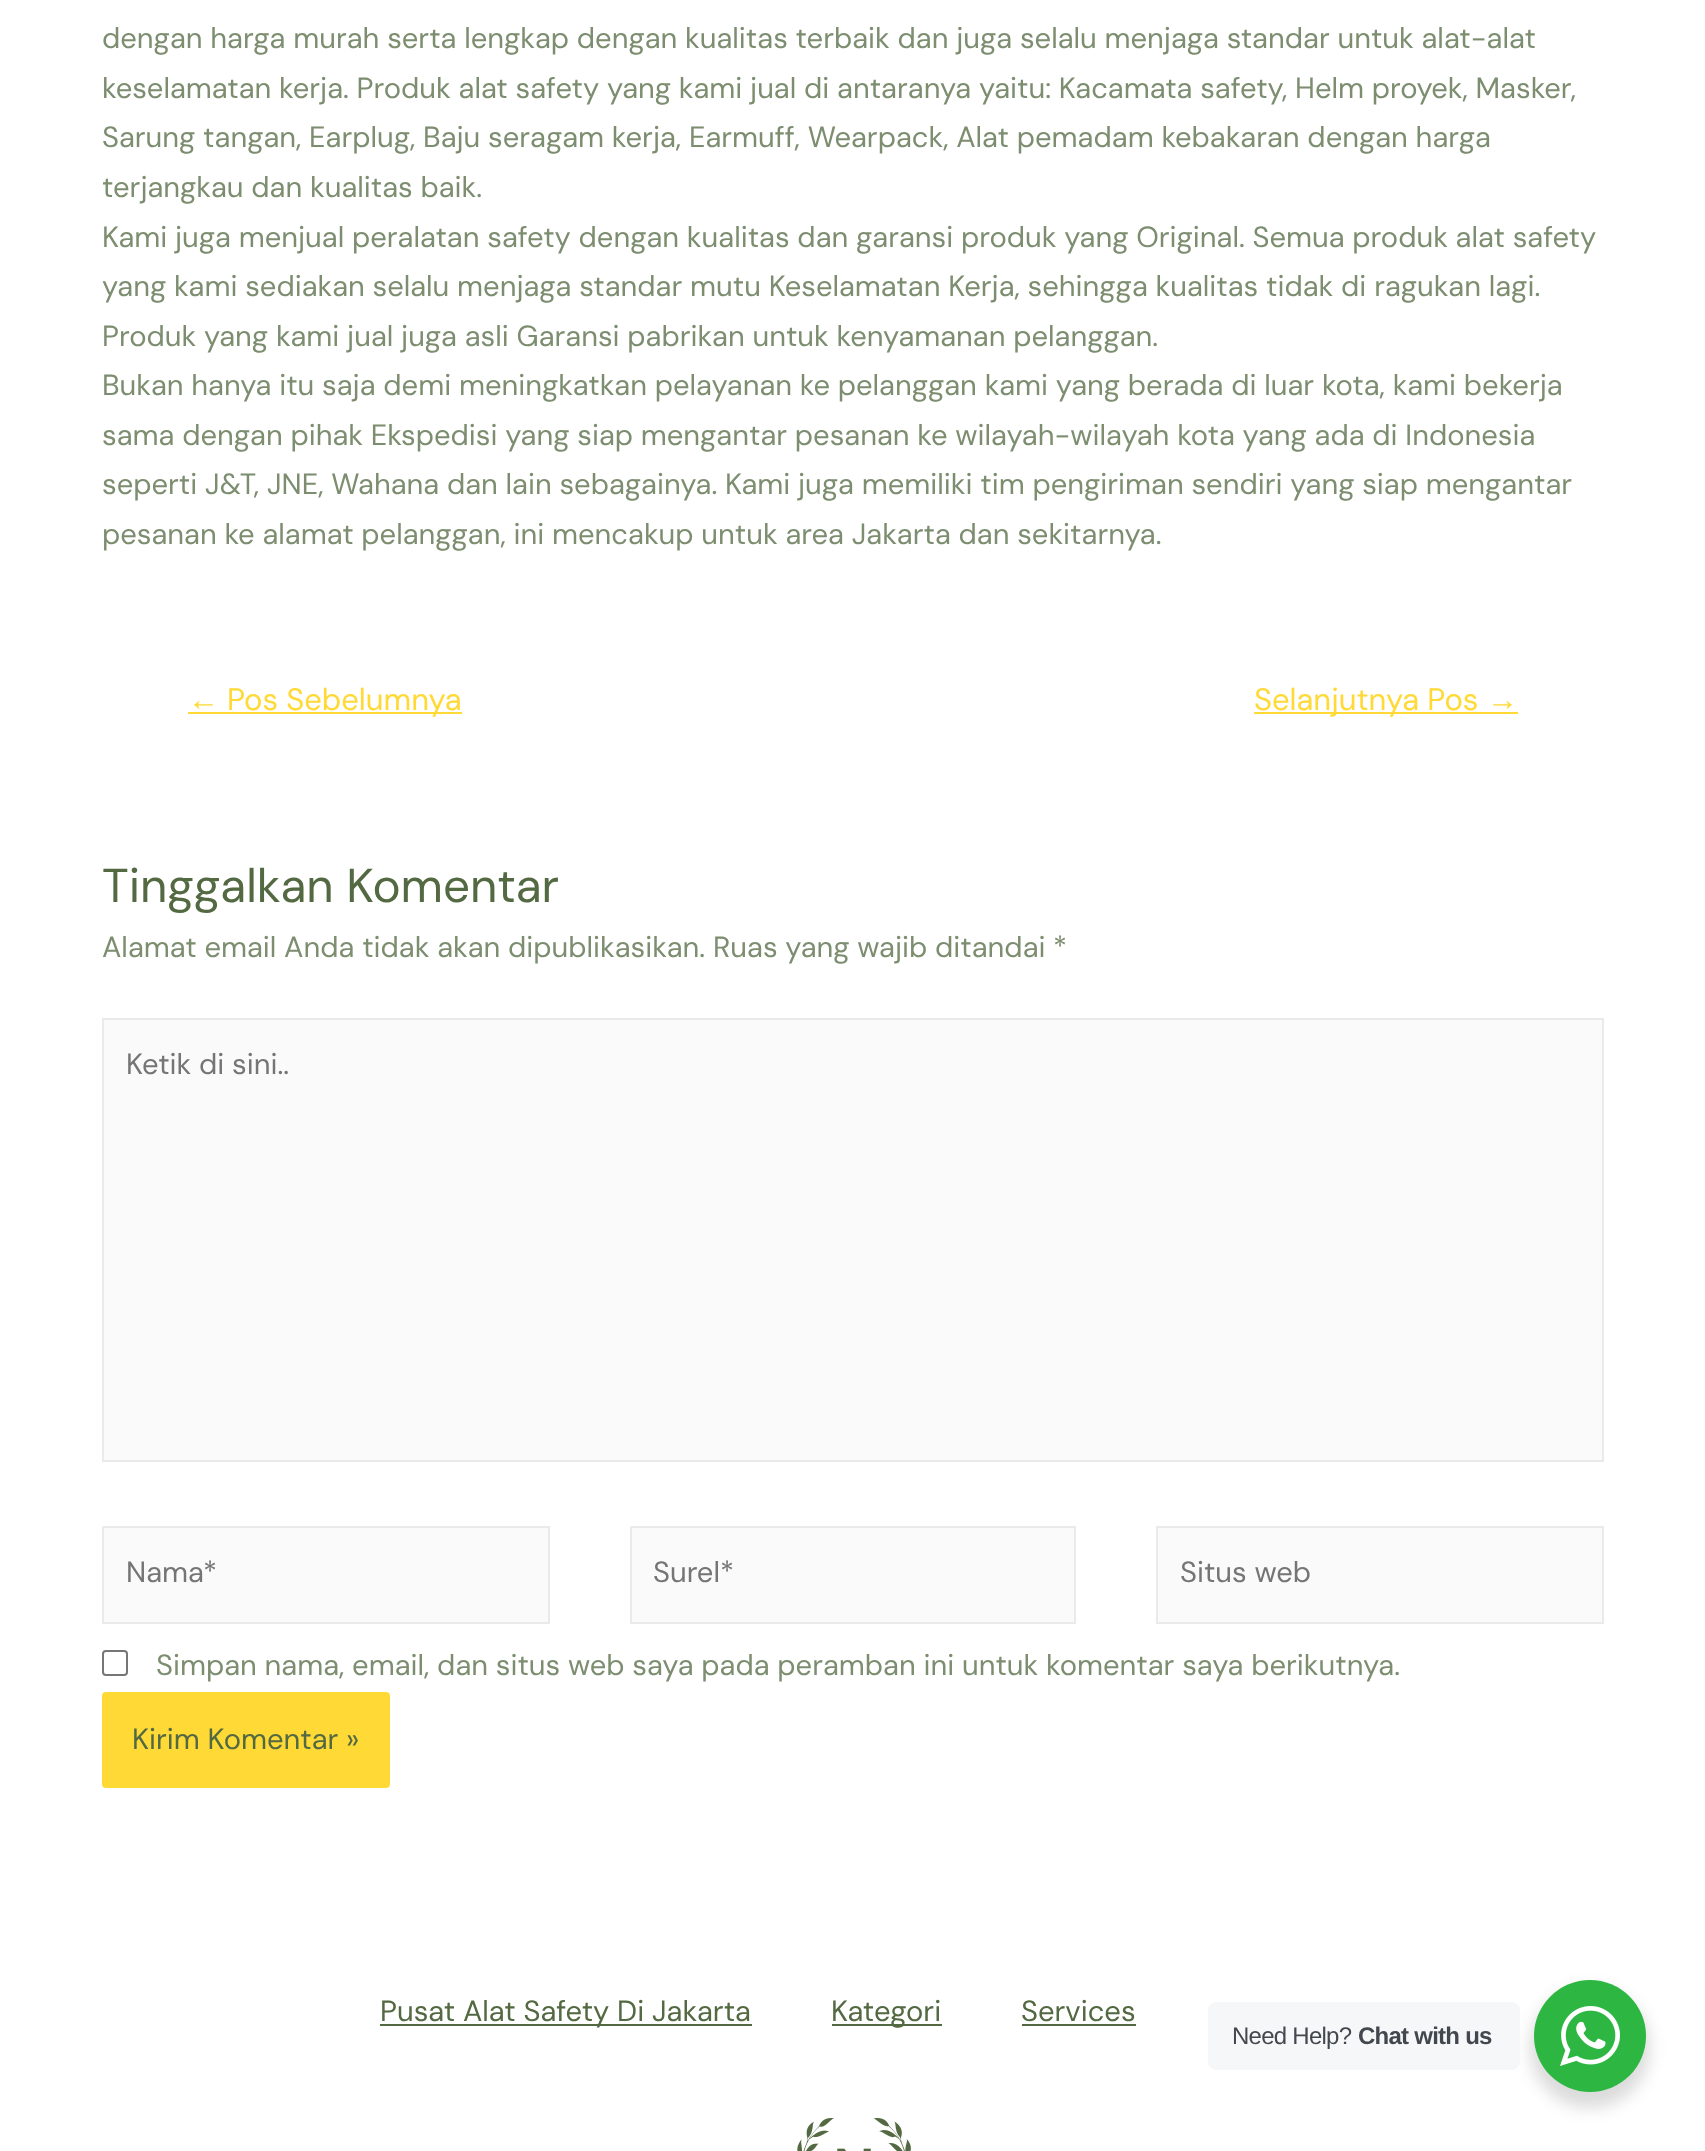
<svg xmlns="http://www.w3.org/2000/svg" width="1705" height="2151">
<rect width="100%" height="100%" fill="#fff"/>
<text x="102" y="48" style="font-family:DM Sans;font-size:29.18px;fill:#7d8e70">dengan harga murah serta lengkap dengan kualitas terbaik dan juga selalu menjaga standar untuk alat-alat</text>
<text x="102" y="98" style="font-family:DM Sans;font-size:29.18px;fill:#7d8e70">keselamatan kerja. Produk alat safety yang kami jual di antaranya yaitu: Kacamata safety, Helm proyek, Masker,</text>
<text x="102" y="147" style="font-family:DM Sans;font-size:29.18px;fill:#7d8e70">Sarung tangan, Earplug, Baju seragam kerja, Earmuff, Wearpack, Alat pemadam kebakaran dengan harga</text>
<text x="102" y="197" style="font-family:DM Sans;font-size:29.18px;fill:#7d8e70">terjangkau dan kualitas baik.</text>
<text x="102" y="247" style="font-family:DM Sans;font-size:29.18px;fill:#7d8e70">Kami juga menjual peralatan safety dengan kualitas dan garansi produk yang Original. Semua produk alat safety</text>
<text x="102" y="296" style="font-family:DM Sans;font-size:29.18px;fill:#7d8e70">yang kami sediakan selalu menjaga standar mutu Keselamatan Kerja, sehingga kualitas tidak di ragukan lagi.</text>
<text x="102" y="346" style="font-family:DM Sans;font-size:29.18px;fill:#7d8e70">Produk yang kami jual juga asli Garansi pabrikan untuk kenyamanan pelanggan.</text>
<text x="102" y="395" style="font-family:DM Sans;font-size:29.18px;fill:#7d8e70">Bukan hanya itu saja demi meningkatkan pelayanan ke pelanggan kami yang berada di luar kota, kami bekerja</text>
<text x="102" y="445" style="font-family:DM Sans;font-size:29.18px;fill:#7d8e70">sama dengan pihak Ekspedisi yang siap mengantar pesanan ke wilayah-wilayah kota yang ada di Indonesia</text>
<text x="102" y="494" style="font-family:DM Sans;font-size:29.18px;fill:#7d8e70">seperti J&amp;T, JNE, Wahana dan lain sebagainya. Kami juga memiliki tim pengiriman sendiri yang siap mengantar</text>
<text x="102" y="544" style="font-family:DM Sans;font-size:29.18px;fill:#7d8e70">pesanan ke alamat pelanggan, ini mencakup untuk area Jakarta dan sekitarnya.</text>
<text x="188" y="710" style="font-family:Liberation Sans;font-size:31px;fill:#ffd936">←</text>
<rect x="188" y="712" width="274" height="2" fill="#ffd936"/>
<text x="227" y="710" style="font-family:DM Sans;font-size:31px;fill:#ffd936">Pos Sebelumnya</text>
<rect x="1254" y="712" width="264" height="2" fill="#ffd936"/>
<text x="1254" y="710" style="font-family:DM Sans;font-size:31px;fill:#ffd936">Selanjutnya Pos</text>
<text x="1487" y="710" style="font-family:Liberation Sans;font-size:31px;fill:#ffd936">→</text>
<text x="102" y="902" style="font-family:DM Sans;font-size:47.5px;fill:#536942">Tinggalkan Komentar</text>
<text x="102" y="957" style="font-family:DM Sans;font-size:29.18px;fill:#7d8e70">Alamat email Anda tidak akan dipublikasikan.</text>
<text x="713" y="957" style="font-family:DM Sans;font-size:29.18px;fill:#7d8e70">Ruas yang wajib ditandai</text>
<text x="1053" y="957" style="font-family:DM Sans;font-size:29.18px;fill:#7d8e70">*</text>
<rect x="103" y="1019" width="1500" height="442" fill="#fafafa" stroke="#eaeaea" stroke-width="2"/>
<text x="126" y="1074" style="font-family:DM Sans;font-size:29.18px;fill:#757575">Ketik di sini..</text>
<rect x="103" y="1527" width="446" height="96" fill="#fafafa" stroke="#eaeaea" stroke-width="2"/>
<text x="126" y="1582" style="font-family:DM Sans;font-size:29.18px;fill:#757575">Nama*</text>
<rect x="631" y="1527" width="444" height="96" fill="#fafafa" stroke="#eaeaea" stroke-width="2"/>
<text x="653" y="1582" style="font-family:DM Sans;font-size:29.18px;fill:#757575">Surel*</text>
<rect x="1157" y="1527" width="446" height="96" fill="#fafafa" stroke="#eaeaea" stroke-width="2"/>
<text x="1180" y="1582" style="font-family:DM Sans;font-size:29.18px;fill:#757575">Situs web</text>
<rect x="103" y="1651" width="24" height="24" rx="3" fill="none" stroke="#767676" stroke-width="2"/>
<text x="156" y="1675" style="font-family:DM Sans;font-size:29.18px;fill:#7d8e70">Simpan nama, email, dan situs web saya pada peramban ini untuk komentar saya berikutnya.</text>
<rect x="102" y="1692" width="288" height="96" rx="4" fill="#ffd936"/>
<text x="132" y="1749" style="font-family:DM Sans;font-size:29.18px;fill:#536942">Kirim Komentar »</text>
<rect x="380" y="2024" width="372" height="2" fill="#536942"/>
<text x="380" y="2021" style="font-family:DM Sans;font-size:29.18px;fill:#536942">Pusat Alat Safety Di Jakarta</text>
<rect x="832" y="2024" width="110" height="2" fill="#536942"/>
<text x="831" y="2021" style="font-family:DM Sans;font-size:29.18px;fill:#536942">Kategori</text>
<text x="1021" y="2021" style="font-family:DM Sans;font-size:29.18px;fill:#536942">Services</text>
<rect x="1022" y="2024" width="114" height="2" fill="#536942"/>
<image x="797" y="2118" width="114" height="33" href="media/1.png"/>
<rect x="1530" y="1988" width="120" height="120" rx="60" fill="#00000024" filter="blur(8px)"/>
<rect x="1208" y="2002" width="312" height="68" rx="8" fill="#f5f7f9"/>
<text x="1232" y="2044" style="font-family:Liberation Sans;font-size:24px;letter-spacing:-0.75px;fill:#43474e">Need Help?</text>
<text x="1358" y="2044" style="font-family:Liberation Sans;font-size:24px;font-weight:bold;letter-spacing:-0.75px;fill:#43474e">Chat with us</text>
<circle cx="1590" cy="2036" r="56" fill="#2db742"/>
<image x="1560" y="2006" width="60" height="60" href="media/2.png"/>
</svg>
